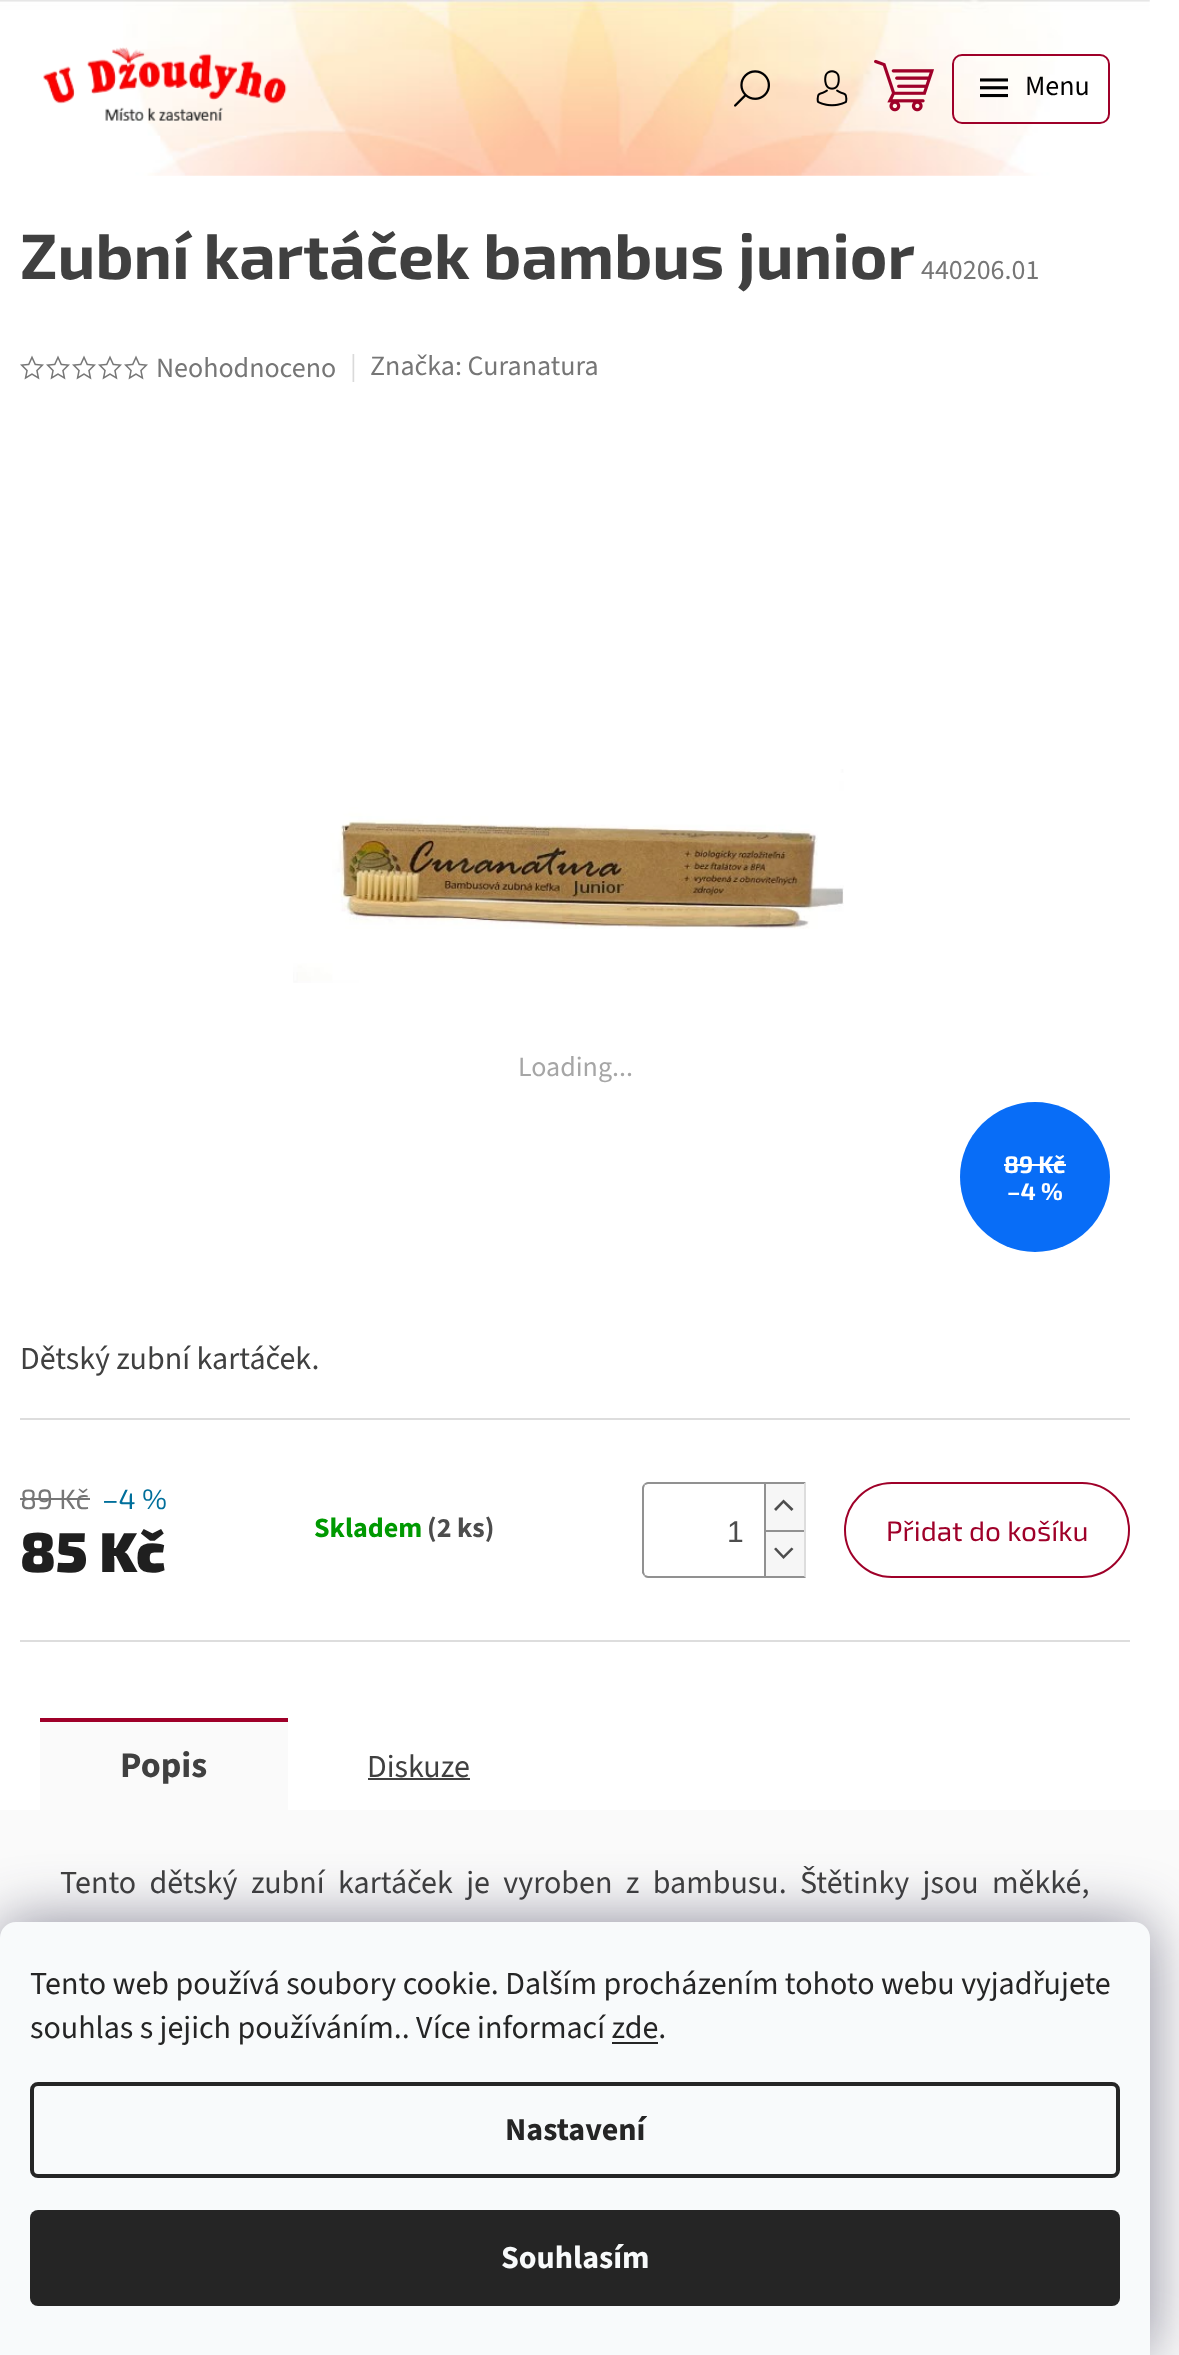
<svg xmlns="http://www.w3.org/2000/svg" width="1179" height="2355">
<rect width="100%" height="100%" fill="#fff"/>
<image x="0" y="0" width="1150" height="176" href="media/1.png"/>
<image x="43" y="47" width="244" height="74" href="media/2.png"/>
<image x="734" y="70" width="36" height="37" href="media/3.png"/>
<image x="816" y="70" width="32" height="37" href="media/4.png"/>
<image x="874" y="59" width="60" height="53" href="media/5.png"/>
<rect x="953" y="55" width="156" height="68" rx="9" fill="none" stroke="#9f0029" stroke-width="2"/>
<image x="980" y="78" width="28" height="20" href="media/6.png"/>
<text x="1025" y="95" style="font-family:'Source Sans 3';font-size:28px;fill:#000">Menu</text>
<text x="20" y="279" style="font-family:'Exo 2';font-size:64px;font-weight:bold;fill:#404040">Zubní kartáček bambus junior</text>
<text x="921" y="279" style="font-family:'Source Sans 3';font-size:28px;fill:#767676">440206.01</text>
<image x="20" y="355" width="24" height="25" href="media/7.png"/>
<image x="46" y="355" width="24" height="25" href="media/7.png"/>
<image x="72" y="355" width="24" height="25" href="media/7.png"/>
<image x="98" y="355" width="24" height="25" href="media/7.png"/>
<image x="124" y="355" width="24" height="25" href="media/7.png"/>
<text x="156" y="377" style="font-family:'Source Sans 3';font-size:28px;fill:#767676">Neohodnoceno</text>
<text x="350" y="375" style="font-family:'Source Sans 3';font-size:28px;fill:#dadada">|</text>
<text x="370" y="375" style="font-family:'Source Sans 3';font-size:28px;fill:#767676">Značka: Curanatura</text>
<image x="293" y="769" width="551" height="214" href="media/8.png"/>
<text x="518" y="1076" style="font-family:'Source Sans 3';font-size:28px;fill:#a6a6a6">Loading...</text>
<circle cx="1035" cy="1177" r="75" fill="#086df7"/>
<text x="1004" y="1173" style="font-family:'Exo 2';font-size:24px;font-weight:bold;fill:#fff">89 Kč</text>
<rect x="1004" y="1164" width="62" height="2" fill="#fff"/>
<text x="1007" y="1200" style="font-family:'Exo 2';font-size:24px;font-weight:bold;fill:#fff">–4 %</text>
<text x="20" y="1369" style="font-family:'Source Sans 3';font-size:32px;fill:#404040">Dětský zubní kartáček.</text>
<rect x="20" y="1418" width="1110" height="2" fill="#ddd"/>
<rect x="20" y="1640" width="1110" height="2" fill="#ddd"/>
<text x="20" y="1509" style="font-family:'Exo 2';font-size:28px;fill:#767676">89 Kč</text>
<rect x="20" y="1498" width="70" height="2" fill="#767676"/>
<text x="102" y="1509" style="font-family:'Exo 2';font-size:28px;fill:#006f9b">–4 %</text>
<text x="20" y="1572" style="font-family:'Exo 2';font-size:56px;font-weight:900;fill:#1f1f1f">85 Kč</text>
<text x="314" y="1537" style="font-family:'Source Sans 3';font-size:28px;font-weight:bold;fill:#009901">Skladem</text>
<text x="427" y="1537" style="font-family:'Source Sans 3';font-size:28px;font-weight:bold;fill:#4d4d4d">(2 ks)</text>
<path d="M648 1482c-2 0-3 1-4 2l1 1l3-1h156l2-2z" fill="#919191"/>
<path d="M806 1482l-2 2v92l2 2z" fill="#ddd"/>
<path d="M806 1578l-2-2h-156l-3-1l-1 1c1 1 2 2 4 2z" fill="#919191"/>
<path d="M642 1488v85l2 3l1-1l-1-3v-84l1-3l-1-1c-1 1-2 2-2 4z" fill="#919191"/>
<text x="727" y="1542" style="font-family:Liberation Sans;font-size:30px;fill:#4d4d4d">1</text>
<rect x="766" y="1484" width="38" height="46" fill="#f6f6f6"/>
<rect x="764" y="1484" width="2" height="46" fill="#919191"/>
<path d="M774 1509l2 2l7.5-8l8 8l2-2l-10-9.5z" fill="#4d4d4d"/>
<rect x="766" y="1532" width="38" height="44" fill="#f6f6f6"/>
<rect x="764" y="1530" width="40" height="2" fill="#919191"/>
<rect x="764" y="1530" width="2" height="46" fill="#919191"/>
<path d="M774 1549l2-1.5l7.5 8l8-8l2 1.5l-10 10z" fill="#4d4d4d"/>
<rect x="845" y="1483" width="284" height="94" rx="47" fill="none" stroke="#9f0029" stroke-width="2"/>
<text x="886" y="1541" style="font-family:'Exo 2';font-size:28px;fill:#9f0029">Přidat do košíku</text>
<rect x="40" y="1722" width="248" height="88" fill="#fafafa"/>
<rect x="40" y="1718" width="248" height="4" fill="#9f0029"/>
<text x="120" y="1777" style="font-family:'Source Sans 3';font-size:36px;font-weight:bold;fill:#404040">Popis</text>
<text x="367" y="1777" style="font-family:'Source Sans 3';font-size:32px;fill:#404040">Diskuze</text>
<rect x="368" y="1778" width="102" height="2" fill="#404040"/>
<rect y="1810" width="1150" height="128" fill="#fafafa"/>
<text x="60" y="1893" word-spacing="7" style="font-family:'Source Sans 3';font-size:32px;fill:#404040">Tento dětský zubní kartáček je vyroben z bambusu. Štětinky jsou měkké,</text>
<rect x="1150" y="1810" width="29" height="545" fill="#fafafa"/>
<rect y="1922" width="1150" height="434" rx="16" fill="#1b193980" filter="blur(30px)"/>
<path d="M16 1922h1118c9 0 16 7 16 16v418h-1150v-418c0-9 7-16 16-16z" fill="#f8fafb"/>
<text x="30" y="1994" style="font-family:'Source Sans 3';font-size:32px;fill:#252525">Tento web používá soubory cookie. Dalším procházením tohoto webu vyjadřujete</text>
<text x="30" y="2038" style="font-family:'Source Sans 3';font-size:32px;fill:#252525">souhlas s jejich používáním.. Více informací zde.</text>
<rect x="612" y="2042" width="46" height="2" fill="#252525"/>
<rect x="32" y="2084" width="1086" height="92" rx="6" fill="none" stroke="#252525" stroke-width="4"/>
<text x="505" y="2140" style="font-family:'Source Sans 3';font-size:32px;font-weight:bold;fill:#252525">Nastavení</text>
<rect x="30" y="2210" width="1090" height="96" rx="8" fill="#252525"/>
<text x="501" y="2268" style="font-family:'Source Sans 3';font-size:32px;font-weight:bold;fill:#f8fafb">Souhlasím</text>
</svg>
